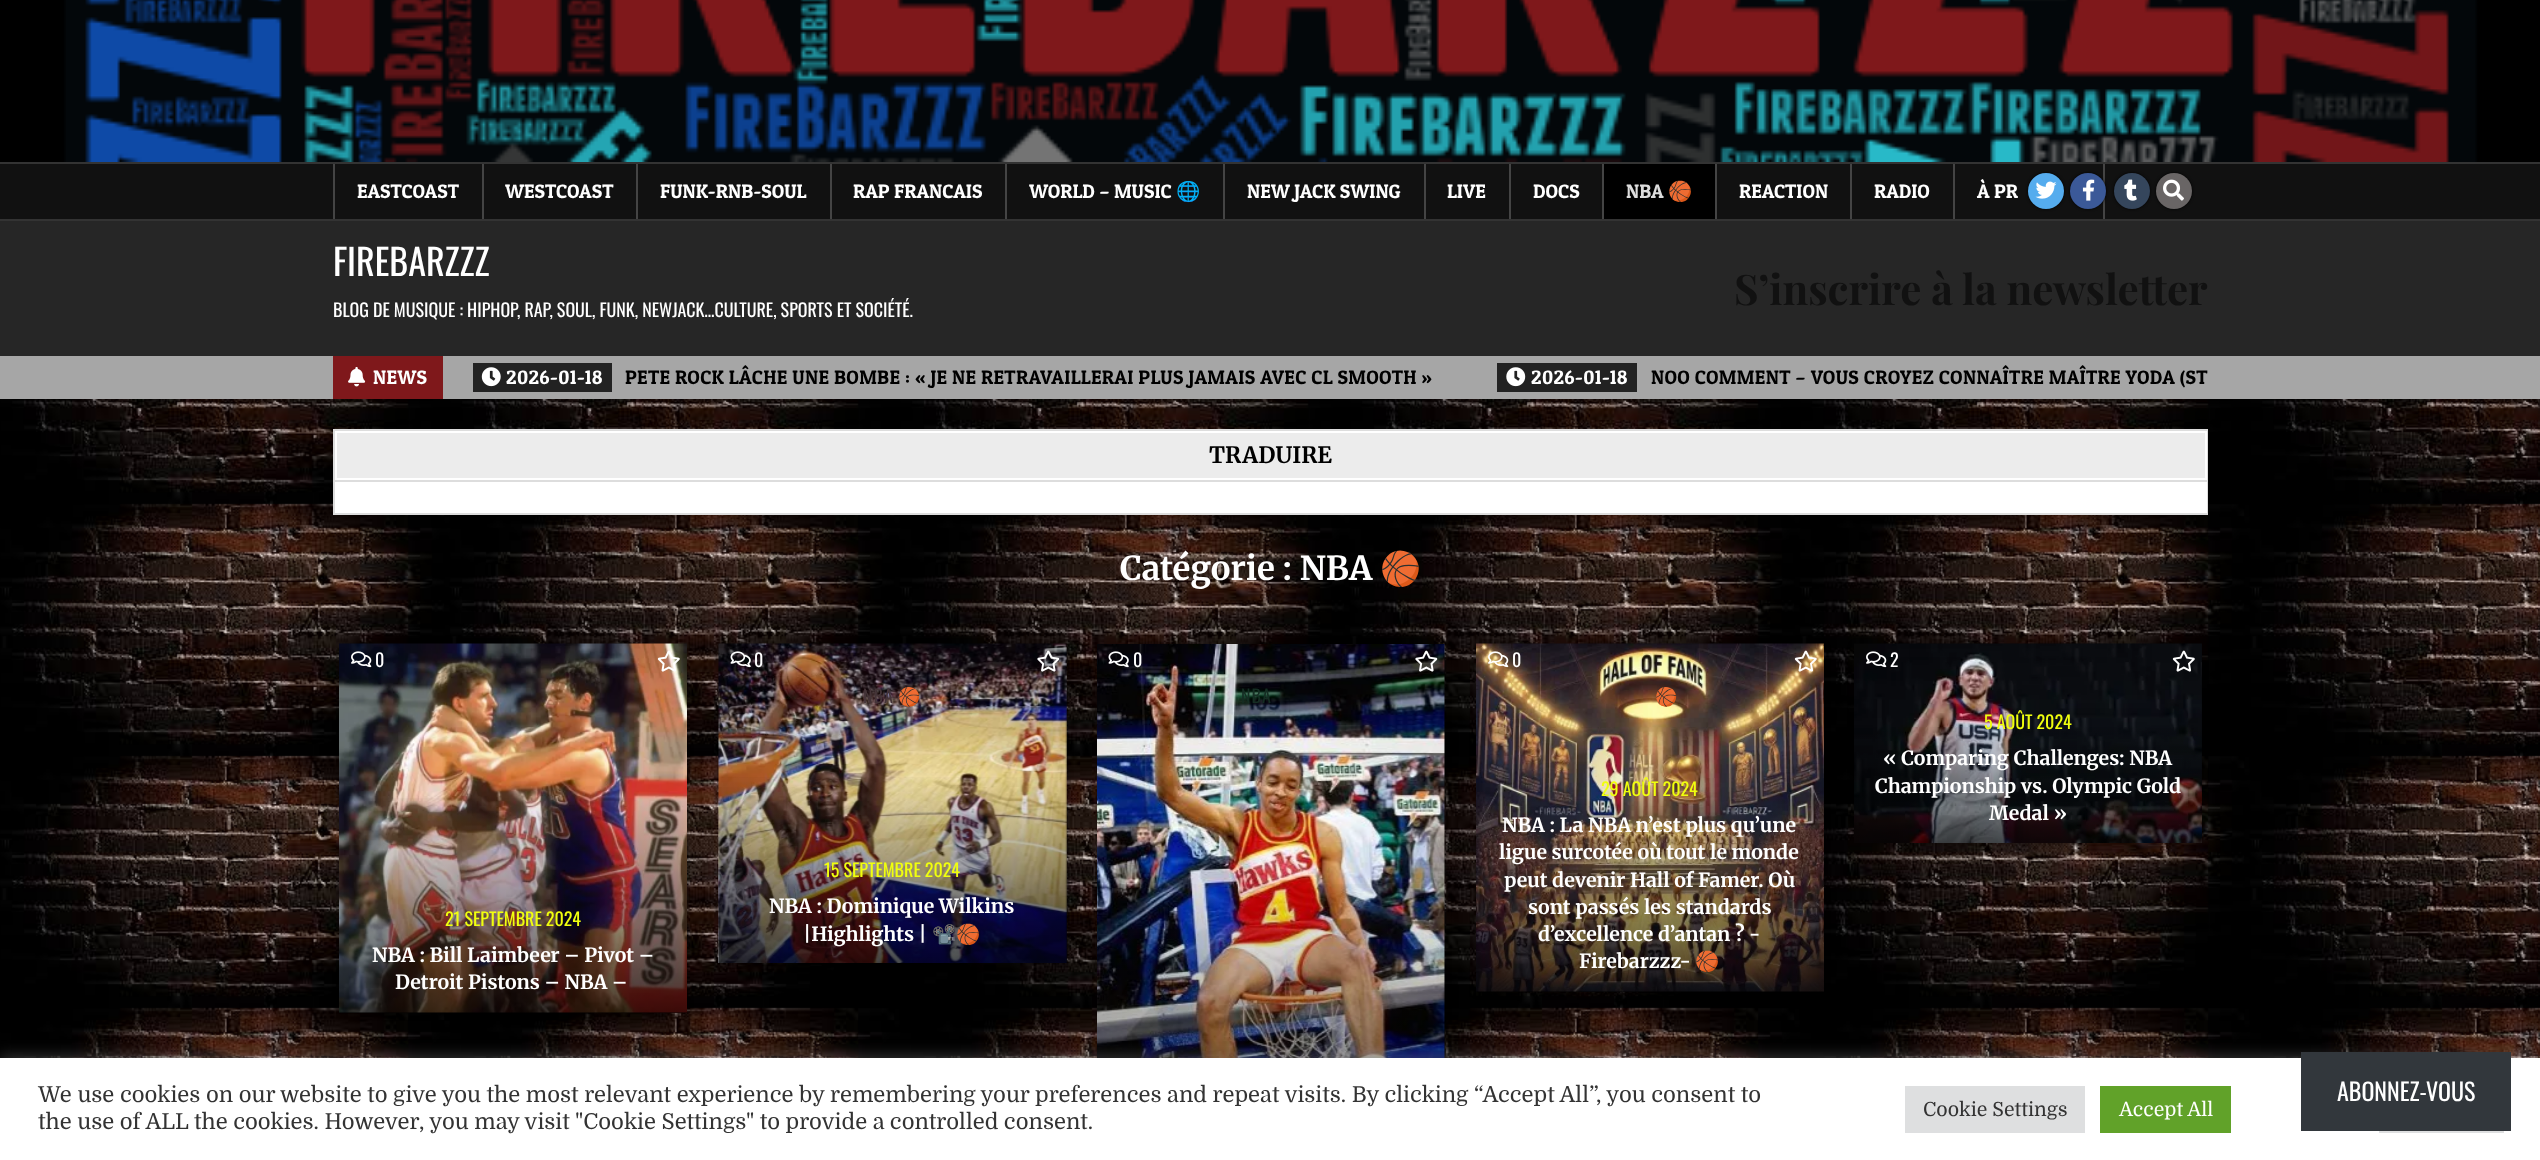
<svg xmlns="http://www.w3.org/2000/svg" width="2540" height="1160">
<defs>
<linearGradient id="g1" gradientUnits="userSpaceOnUse" x1="513" y1="1013" x2="513" y2="644"><stop offset="0" stop-color="#000" stop-opacity="0.7"/><stop offset="0.6" stop-color="#000" stop-opacity="0"/><stop offset="1" stop-color="#000" stop-opacity="0"/></linearGradient>
<linearGradient id="g2" gradientUnits="userSpaceOnUse" x1="893" y1="963" x2="893" y2="644"><stop offset="0" stop-color="#000" stop-opacity="0.7"/><stop offset="0.6" stop-color="#000" stop-opacity="0"/><stop offset="1" stop-color="#000" stop-opacity="0"/></linearGradient>
<linearGradient id="g3" gradientUnits="userSpaceOnUse" x1="1271" y1="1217" x2="1271" y2="644"><stop offset="0" stop-color="#000" stop-opacity="0.7"/><stop offset="0.6" stop-color="#000" stop-opacity="0"/><stop offset="1" stop-color="#000" stop-opacity="0"/></linearGradient>
<linearGradient id="g4" gradientUnits="userSpaceOnUse" x1="1650" y1="992" x2="1650" y2="644"><stop offset="0" stop-color="#000" stop-opacity="0.7"/><stop offset="0.6" stop-color="#000" stop-opacity="0"/><stop offset="1" stop-color="#000" stop-opacity="0"/></linearGradient>
<linearGradient id="g5" gradientUnits="userSpaceOnUse" x1="2028" y1="843" x2="2028" y2="644"><stop offset="0" stop-color="#000" stop-opacity="0.7"/><stop offset="0.6" stop-color="#000" stop-opacity="0"/><stop offset="1" stop-color="#000" stop-opacity="0"/></linearGradient>
</defs>
<rect width="100%" height="100%" fill="#fff"/>
<image x="0" y="399" width="2540" height="659" href="media/1.png"/>
<image x="0" y="0" width="2540" height="162" href="media/2.png"/>
<rect y="164" width="2540" height="55" fill="#111"/>
<rect y="162" width="2540" height="2" fill="#333"/>
<rect y="219" width="2540" height="2" fill="#333"/>
<rect x="482" y="164" width="2" height="55" fill="#444"/>
<rect x="333" y="164" width="2" height="55" fill="#444"/>
<text x="357" y="198" style="font-family:Patua One;font-size:19.5px;fill:#fff">EASTCOAST</text>
<rect x="636" y="164" width="2" height="55" fill="#444"/>
<text x="505" y="198" style="font-family:Patua One;font-size:19.5px;fill:#fff">WESTCOAST</text>
<rect x="830" y="164" width="2" height="55" fill="#444"/>
<text x="660" y="198" style="font-family:Patua One;font-size:19.5px;fill:#fff">FUNK-RNB-SOUL</text>
<rect x="1005" y="164" width="2" height="55" fill="#444"/>
<text x="853" y="198" style="font-family:Patua One;font-size:19.5px;fill:#fff">RAP FRANCAIS</text>
<rect x="1223" y="164" width="2" height="55" fill="#444"/>
<text x="1029" y="198" style="font-family:Patua One;font-size:19.5px;fill:#fff">WORLD – MUSIC</text>
<text x="1176" y="198" style="font-family:Noto Color Emoji;font-size:19.5px;fill:#fff">🌐</text>
<rect x="1424" y="164" width="2" height="55" fill="#444"/>
<text x="1247" y="198" style="font-family:Patua One;font-size:19.5px;fill:#fff">NEW JACK SWING</text>
<rect x="1509" y="164" width="2" height="55" fill="#444"/>
<text x="1447" y="198" style="font-family:Patua One;font-size:19.5px;fill:#fff">LIVE</text>
<rect x="1602" y="164" width="2" height="55" fill="#444"/>
<text x="1533" y="198" style="font-family:Patua One;font-size:19.5px;fill:#fff">DOCS</text>
<rect x="1604" y="164" width="111" height="55" fill="#000"/>
<rect x="1715" y="164" width="2" height="55" fill="#444"/>
<text x="1626" y="198" style="font-family:Patua One;font-size:19.5px;fill:#ddd">NBA</text>
<text x="1668" y="198" style="font-family:Noto Color Emoji;font-size:19.5px;fill:#ddd">🏀</text>
<rect x="1850" y="164" width="2" height="55" fill="#444"/>
<text x="1739" y="198" style="font-family:Patua One;font-size:19.5px;fill:#fff">REACTION</text>
<rect x="1953" y="164" width="2" height="55" fill="#444"/>
<text x="1874" y="198" style="font-family:Patua One;font-size:19.5px;fill:#fff">RADIO</text>
<rect x="2103" y="164" width="2" height="55" fill="#444"/>
<text x="1977" y="198" style="font-family:Patua One;font-size:19.5px;fill:#fff">À PR</text>
<rect x="2028" y="173" width="36" height="36" rx="18" fill="#000" filter="blur(1.5px)"/>
<circle cx="2046" cy="191" r="18" fill="#55acee"/>
<image x="2035" y="181" width="22" height="18" href="media/3.png"/>
<rect x="2070" y="173" width="36" height="36" rx="18" fill="#000" filter="blur(1.5px)"/>
<circle cx="2088" cy="191" r="18" fill="#3b5998"/>
<image x="2082" y="179" width="13" height="22" href="media/4.png"/>
<rect x="2114" y="173" width="36" height="36" rx="18" fill="#000" filter="blur(1.5px)"/>
<circle cx="2132" cy="191" r="18" fill="#35465c"/>
<image x="2124" y="179" width="13" height="22" href="media/5.png"/>
<rect x="2156" y="173" width="36" height="36" rx="18" fill="#000" filter="blur(1.5px)"/>
<circle cx="2174" cy="191" r="18" fill="#696565"/>
<image x="2163" y="179" width="21" height="22" href="media/6.png"/>
<rect y="221" width="2540" height="135" fill="#262626"/>
<text x="333" y="276" style="font-family:Oswald;font-size:36px;fill:#fff">FIREBARZZZ</text>
<text x="333" y="317" style="font-family:Oswald;font-size:18px;fill:#fff">BLOG DE MUSIQUE : HIPHOP, RAP, SOUL, FUNK, NEWJACK…CULTURE, SPORTS ET SOCIÉTÉ.</text>
<text x="1734" y="305" style="font-family:Playfair Display;font-size:42px;font-weight:bold;fill:#111">S’inscrire à la newsletter</text>
<rect y="356" width="2540" height="43" fill="#a6a6a6"/>
<rect x="333" y="356" width="110" height="43" fill="#7f181b"/>
<image x="348" y="367" width="18" height="20" href="media/7.png"/>
<text x="373" y="384" style="font-family:Patua One;font-size:19.5px;letter-spacing:0.3px;fill:#fff">NEWS</text>
<rect x="473" y="363" width="139" height="29" fill="#222"/>
<image x="481" y="367" width="20" height="20" href="media/8.png"/>
<text x="506" y="384" style="font-family:Patua One;font-size:19.5px;letter-spacing:0.3px;fill:#fff">2026-01-18</text>
<text x="625" y="384" style="font-family:Patua One;font-size:19.5px;letter-spacing:0.3px;fill:#000">PETE ROCK LÂCHE UNE BOMBE : « JE NE RETRAVAILLERAI PLUS JAMAIS AVEC CL SMOOTH »</text>
<rect x="1497" y="363" width="140" height="29" fill="#222"/>
<image x="1506" y="367" width="20" height="20" href="media/9.png"/>
<text x="1531" y="384" style="font-family:Patua One;font-size:19.5px;letter-spacing:0.3px;fill:#fff">2026-01-18</text>
<text x="1651" y="384" style="font-family:Patua One;font-size:19.5px;letter-spacing:0.3px;fill:#000">NOO COMMENT – VOUS CROYEZ CONNAÎTRE MAÎTRE YODA (ST</text>
<rect x="337" y="482" width="1868" height="29" fill="#fff"/>
<rect x="334" y="430" width="1873" height="84" fill="none" stroke="#ddd" stroke-width="2"/>
<rect x="336" y="432" width="1870" height="80" fill="none" stroke="#fff" stroke-width="2"/>
<rect x="335" y="480" width="1872" height="2" fill="#ddd"/>
<rect x="336" y="432" width="1870" height="47" fill="#ececec" stroke="#fff" stroke-width="2"/>
<text x="1209" y="463" style="font-family:Merriweather;font-size:22.5px;font-weight:bold;fill:#000">TRADUIRE</text>
<text x="1120" y="580" style="font-family:Merriweather;font-size:33px;font-weight:bold;fill:#fff">Catégorie : NBA</text>
<text x="1380" y="580" style="font-family:Noto Color Emoji;font-size:33px;font-weight:bold;fill:#fff">🏀</text>
<rect x="339" y="645" width="348" height="369" fill="#0000004d" filter="blur(3px)"/>
<image x="339" y="643" width="348" height="370" href="media/10.png"/>
<rect x="339" y="798" width="348" height="215" fill="url(#g1)"/>
<image x="351" y="651" width="21" height="17" href="media/11.png"/>
<text x="375" y="667" style="font-family:Oswald;font-size:18px;fill:#fff">0</text>
<image x="657" y="650" width="23" height="22" href="media/12.png"/>
<text x="445" y="926" style="font-family:Oswald;font-size:18px;fill:#f0ff0e">21 SEPTEMBRE 2024</text>
<text x="372" y="962" style="font-family:Merriweather;font-size:19.5px;font-weight:bold;fill:#fff">NBA : Bill Laimbeer – Pivot –</text>
<text x="395" y="989" style="font-family:Merriweather;font-size:19.5px;font-weight:bold;fill:#fff">Detroit Pistons – NBA –</text>
<rect x="719" y="645" width="348" height="320" fill="#0000004d" filter="blur(3px)"/>
<image x="718" y="643" width="349" height="320" href="media/13.png"/>
<rect x="719" y="777" width="348" height="186" fill="url(#g2)"/>
<image x="730" y="651" width="21" height="17" href="media/14.png"/>
<text x="754" y="667" style="font-family:Oswald;font-size:18px;fill:#fff">0</text>
<image x="1037" y="650" width="23" height="22" href="media/15.png"/>
<text x="863" y="703" style="font-family:Oswald;font-size:18px;letter-spacing:1px;fill:#443438">NBA</text>
<text x="898" y="703" style="font-family:Noto Color Emoji;font-size:18px;letter-spacing:1px;fill:#5a4a4a">🏀</text>
<text x="824" y="877" style="font-family:Oswald;font-size:18px;fill:#f0ff0e">15 SEPTEMBRE 2024</text>
<text x="769" y="913" style="font-family:Merriweather;font-size:19.5px;font-weight:bold;fill:#fff">NBA : Dominique Wilkins</text>
<text x="803" y="941" style="font-family:Merriweather;font-size:19.5px;font-weight:bold;fill:#fff">|Highlights |</text>
<text x="932" y="941" style="font-family:Noto Color Emoji;font-size:19.5px;font-weight:bold;fill:#fff">📽️🏀</text>
<rect x="1097" y="645" width="348" height="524" fill="#0000004d" filter="blur(3px)"/>
<image x="1097" y="644" width="348" height="414" href="media/16.png"/>
<rect x="1097" y="884" width="348" height="174" fill="url(#g3)"/>
<image x="1108" y="651" width="21" height="17" href="media/17.png"/>
<text x="1133" y="667" style="font-family:Oswald;font-size:18px;fill:#fff">0</text>
<image x="1415" y="650" width="23" height="22" href="media/18.png"/>
<text x="1241" y="703" style="font-family:Oswald;font-size:18px;letter-spacing:1px;fill:#152d23">NBA</text>
<rect x="1476" y="645" width="348" height="348" fill="#0000004d" filter="blur(3px)"/>
<image x="1476" y="643" width="348" height="349" href="media/19.png"/>
<rect x="1476" y="790" width="348" height="202" fill="url(#g4)"/>
<image x="1488" y="651" width="21" height="17" href="media/20.png"/>
<text x="1512" y="667" style="font-family:Oswald;font-size:18px;fill:#fff">0</text>
<image x="1794" y="650" width="23" height="22" href="media/21.png"/>
<text x="1655" y="703" style="font-family:Noto Color Emoji;font-size:18px;letter-spacing:1px;fill:#7d5d3d">🏀</text>
<text x="1601" y="796" style="font-family:Oswald;font-size:18px;fill:#f0ff0e">29 AOÛT 2024</text>
<text x="1502" y="832" style="font-family:Merriweather;font-size:19.5px;font-weight:bold;fill:#fff">NBA : La NBA n’est plus qu’une</text>
<text x="1499" y="859" style="font-family:Merriweather;font-size:19.5px;font-weight:bold;fill:#fff">ligue surcotée où tout le monde</text>
<text x="1504" y="887" style="font-family:Merriweather;font-size:19.5px;font-weight:bold;fill:#fff">peut devenir Hall of Famer. Où</text>
<text x="1528" y="914" style="font-family:Merriweather;font-size:19.5px;font-weight:bold;fill:#fff">sont passés les standards</text>
<text x="1538" y="941" style="font-family:Merriweather;font-size:19.5px;font-weight:bold;fill:#fff">d’excellence d’antan ? -</text>
<text x="1579" y="968" style="font-family:Merriweather;font-size:19.5px;font-weight:bold;fill:#fff">Firebarzzz-</text>
<text x="1695" y="968" style="font-family:Noto Color Emoji;font-size:19.5px;font-weight:bold;fill:#fff">🏀</text>
<rect x="1854" y="645" width="348" height="200" fill="#0000004d" filter="blur(3px)"/>
<image x="1854" y="643" width="348" height="200" href="media/22.png"/>
<rect x="1854" y="727" width="348" height="116" fill="url(#g5)"/>
<image x="1866" y="651" width="21" height="17" href="media/23.png"/>
<text x="1890" y="667" style="font-family:Oswald;font-size:18px;fill:#fff">2</text>
<image x="2172" y="650" width="23" height="22" href="media/24.png"/>
<text x="1984" y="729" style="font-family:Oswald;font-size:18px;fill:#f0ff0e">5 AOÛT 2024</text>
<text x="1883" y="765" style="font-family:Merriweather;font-size:19.5px;font-weight:bold;fill:#fff">« Comparing Challenges: NBA</text>
<text x="1875" y="793" style="font-family:Merriweather;font-size:19.5px;font-weight:bold;fill:#fff">Championship vs. Olympic Gold</text>
<text x="1989" y="820" style="font-family:Merriweather;font-size:19.5px;font-weight:bold;fill:#fff">Medal »</text>
<rect y="1056" width="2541" height="104" fill="#acabab4d" filter="blur(7.5px)"/>
<rect y="1058" width="2540" height="102" fill="#fff"/>
<text x="38" y="1102" style="font-family:Domine;font-size:22px;fill:#333">We use cookies on our website to give you the most relevant experience by remembering your preferences and repeat visits. By clicking “Accept All”, you consent to</text>
<text x="38" y="1129" style="font-family:Domine;font-size:22px;fill:#333">the use of ALL the cookies. However, you may visit "Cookie Settings" to provide a controlled consent.</text>
<rect x="1905" y="1086" width="180" height="47" fill="#dedfe0"/>
<text x="1923" y="1116" style="font-family:Domine;font-size:19.5px;fill:#333">Cookie Settings</text>
<rect x="2100" y="1086" width="131" height="47" fill="#61a229"/>
<text x="2119" y="1116" style="font-family:Domine;font-size:19.5px;fill:#fff">Accept All</text>
<rect x="2379" y="1131" width="125" height="2" fill="#dedfe0"/>
<rect x="2301" y="1052" width="210" height="79" fill="#32373c"/>
<text x="2337" y="1101" style="font-family:Oswald;font-size:24px;fill:#fff">ABONNEZ-VOUS</text>
</svg>
